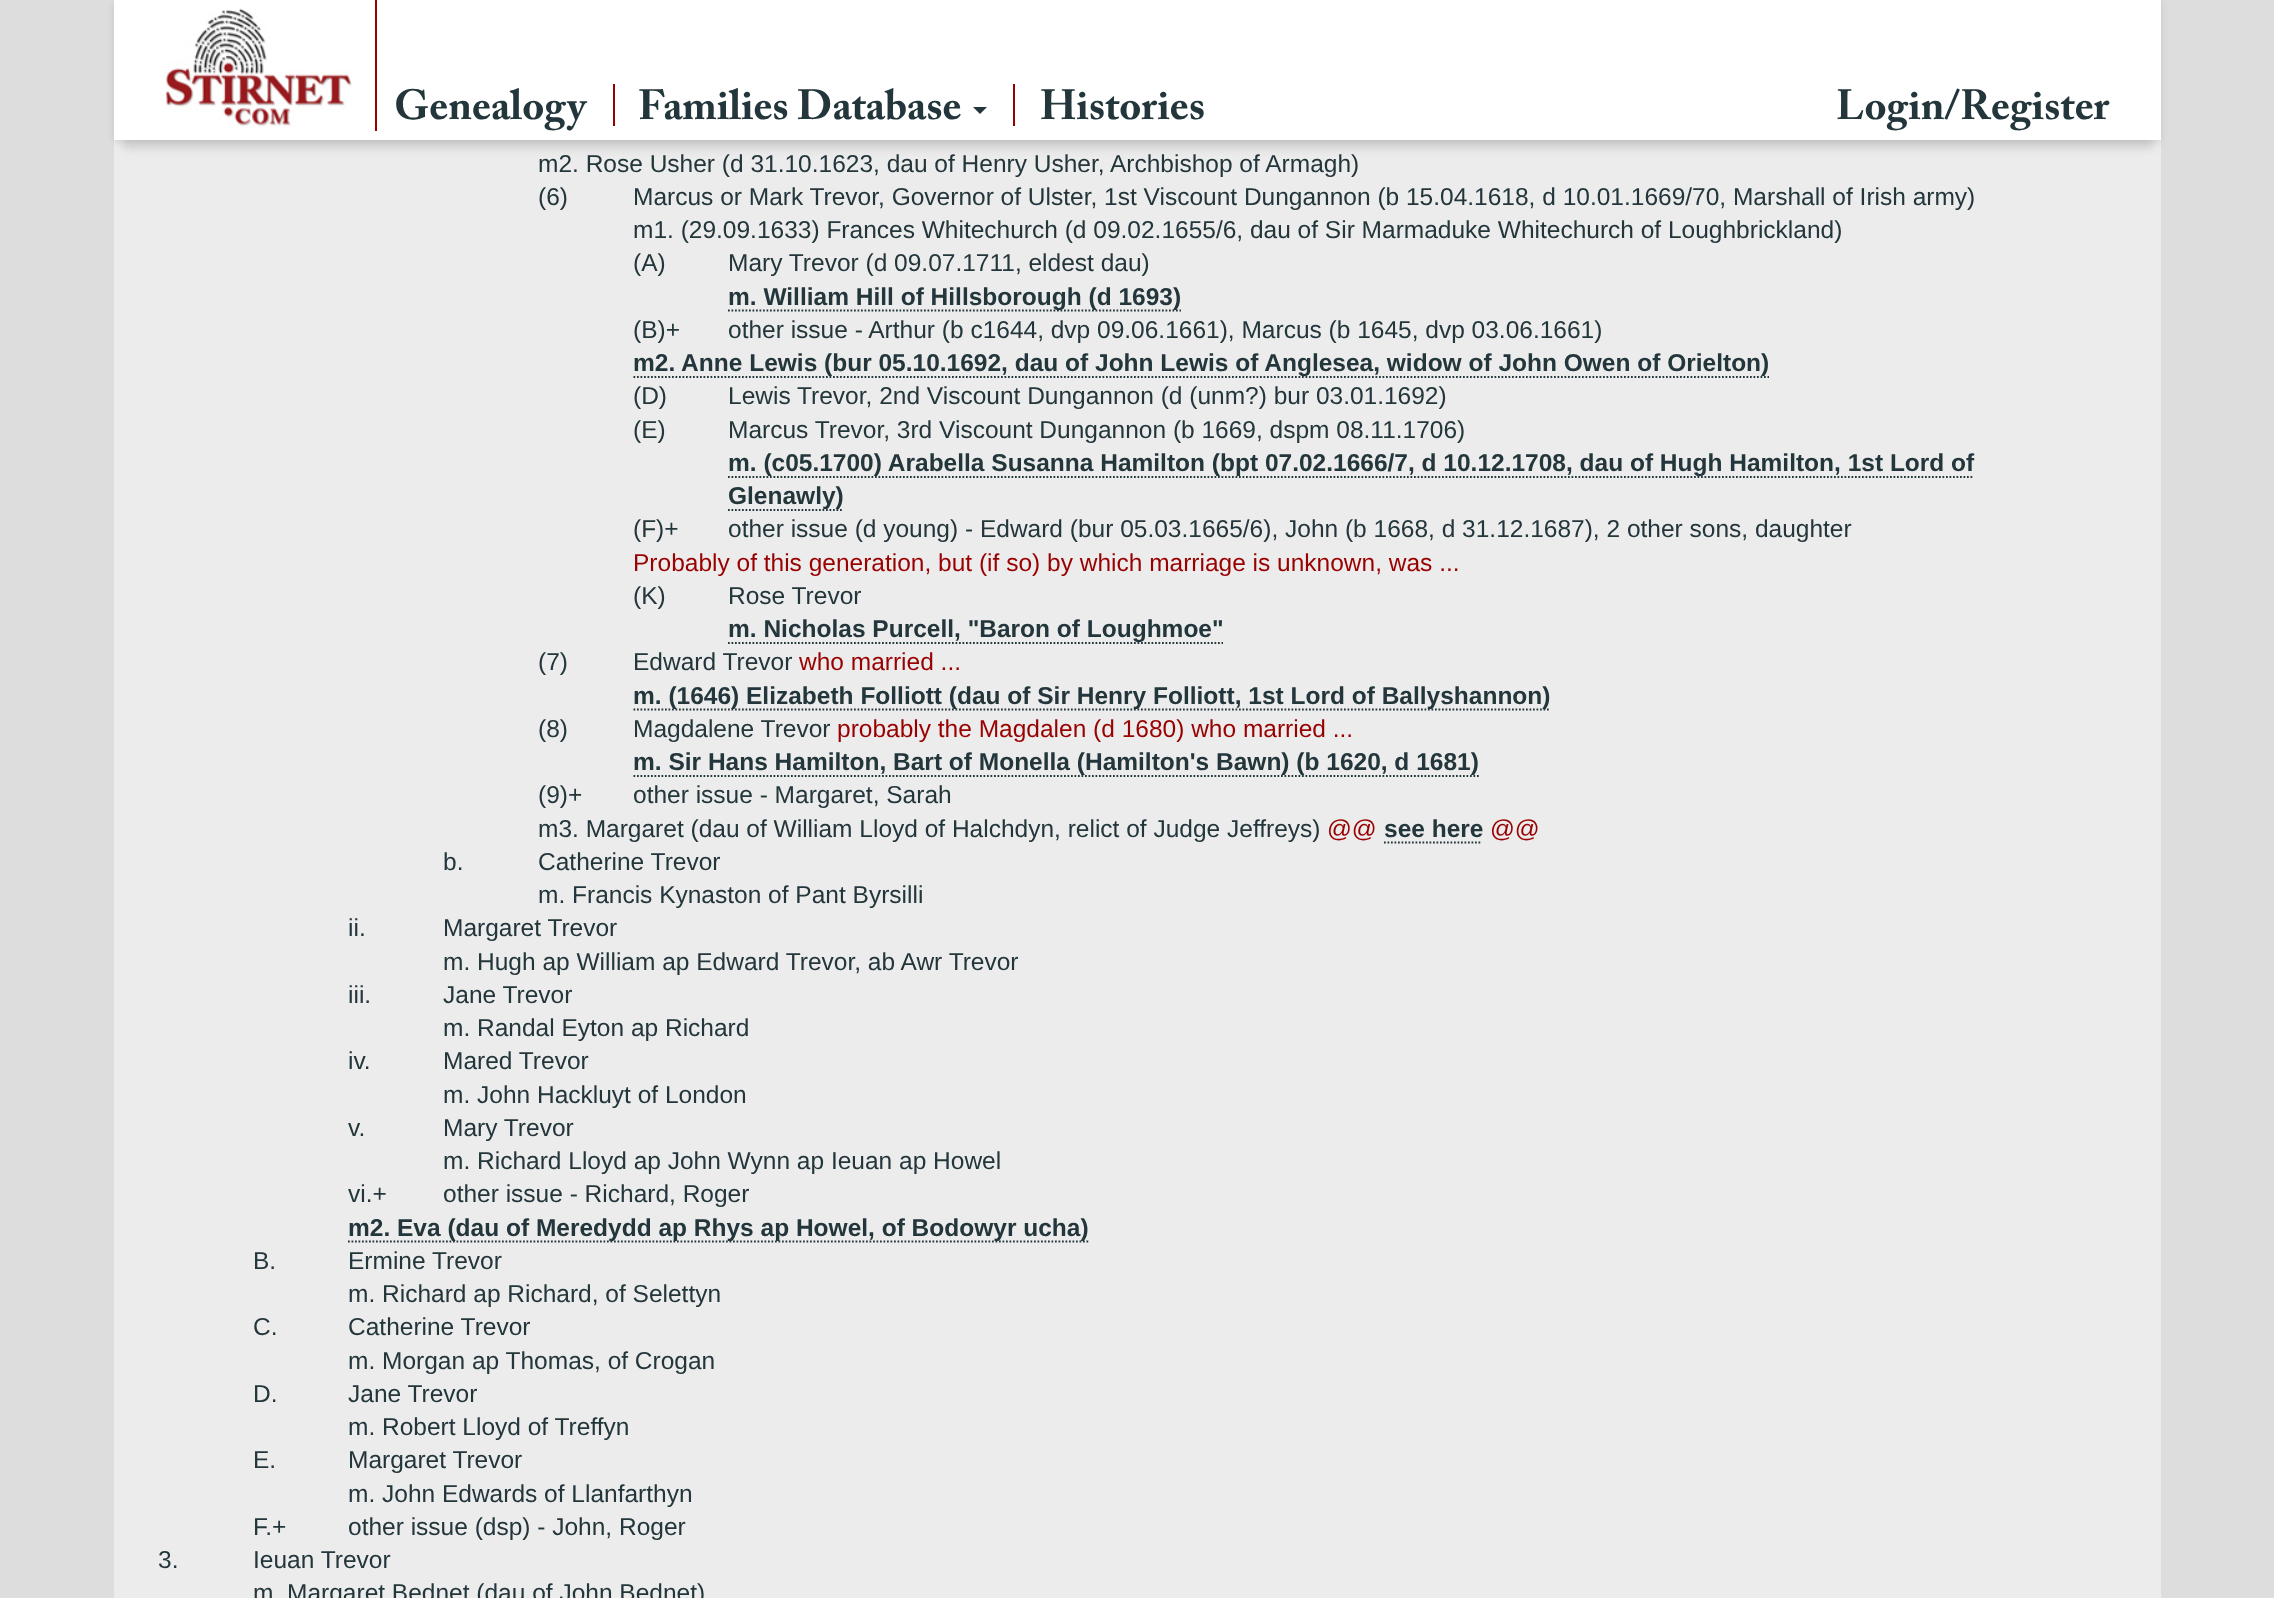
<svg xmlns="http://www.w3.org/2000/svg" width="2274" height="1598">
<rect width="100%" height="100%" fill="#ddd"/>
<rect x="114" y="140" width="2047" height="1458" fill="#ececec"/>
<rect x="114" y="2" width="2047" height="140" fill="#0000001a" filter="blur(3.5px)"/>
<rect x="123" y="26" width="2030" height="123" fill="#0000001a" filter="blur(4.5px)"/>
<rect x="114" width="2047" height="140" fill="#fff"/>
<rect x="375" width="2" height="131" fill="#900"/>
<image x="166" y="8" width="186" height="119" href="media/1.png"/>
<text x="394" y="119" style="font-family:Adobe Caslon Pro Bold;font-size:42px;font-weight:bold;fill:#23363b">Genealogy</text>
<rect x="613" y="84" width="2" height="42" fill="#900"/>
<text x="638" y="119" style="font-family:Adobe Caslon Pro Bold;font-size:42px;font-weight:bold;fill:#23363b">Families Database</text>
<path d="M973 107h14l-7 7z" fill="#23363b"/>
<rect x="1013" y="84" width="2" height="42" fill="#900"/>
<text x="1040" y="119" style="font-family:Adobe Caslon Pro Bold;font-size:42px;font-weight:bold;fill:#23363b">Histories</text>
<text x="1836" y="119" style="font-family:Adobe Caslon Pro Bold;font-size:42px;font-weight:bold;fill:#23363b">Login/Register</text>
<text x="538" y="172" style="font-family:Liberation Sans;font-size:24.5px;fill:#23363b">m2. Rose Usher (d 31.10.1623, dau of Henry Usher, Archbishop of Armagh)</text>
<text x="538" y="205" style="font-family:Liberation Sans;font-size:24.5px;fill:#23363b">(6)</text>
<text x="633" y="205" style="font-family:Liberation Sans;font-size:24.5px;fill:#23363b">Marcus or Mark Trevor, Governor of Ulster, 1st Viscount Dungannon (b 15.04.1618, d 10.01.1669/70, Marshall of Irish army)</text>
<text x="633" y="238" style="font-family:Liberation Sans;font-size:24.5px;fill:#23363b">m1. (29.09.1633) Frances Whitechurch (d 09.02.1655/6, dau of Sir Marmaduke Whitechurch of Loughbrickland)</text>
<text x="633" y="271" style="font-family:Liberation Sans;font-size:24.5px;fill:#23363b">(A)</text>
<text x="728" y="271" style="font-family:Liberation Sans;font-size:24.5px;fill:#23363b">Mary Trevor (d 09.07.1711, eldest dau)</text>
<path d="M728 310.5h453" fill="none" stroke="#23363b" stroke-width="1.8" stroke-dasharray="1.75 1.75"/>
<text x="728" y="305" style="font-family:Liberation Sans;font-size:24.5px;font-weight:bold;fill:#23363b">m. William Hill of Hillsborough (d 1693)</text>
<text x="633" y="338" style="font-family:Liberation Sans;font-size:24.5px;fill:#23363b">(B)+</text>
<text x="728" y="338" style="font-family:Liberation Sans;font-size:24.5px;fill:#23363b">other issue - Arthur (b c1644, dvp 09.06.1661), Marcus (b 1645, dvp 03.06.1661)</text>
<path d="M633.5 377h1135.5" fill="none" stroke="#23363b" stroke-width="1.8" stroke-dasharray="1.75 1.75"/>
<text x="633" y="371" style="font-family:Liberation Sans;font-size:24.5px;font-weight:bold;fill:#23363b">m2. Anne Lewis (bur 05.10.1692, dau of John Lewis of Anglesea, widow of John Owen of Orielton)</text>
<text x="633" y="404" style="font-family:Liberation Sans;font-size:24.5px;fill:#23363b">(D)</text>
<text x="728" y="404" style="font-family:Liberation Sans;font-size:24.5px;fill:#23363b">Lewis Trevor, 2nd Viscount Dungannon (d (unm?) bur 03.01.1692)</text>
<text x="633" y="438" style="font-family:Liberation Sans;font-size:24.5px;fill:#23363b">(E)</text>
<text x="728" y="438" style="font-family:Liberation Sans;font-size:24.5px;fill:#23363b">Marcus Trevor, 3rd Viscount Dungannon (b 1669, dspm 08.11.1706)</text>
<path d="M728 477h1246" fill="none" stroke="#23363b" stroke-width="1.8" stroke-dasharray="1.75 1.75"/>
<text x="728" y="471" style="font-family:Liberation Sans;font-size:24.5px;font-weight:bold;fill:#23363b">m. (c05.1700) Arabella Susanna Hamilton (bpt 07.02.1666/7, d 10.12.1708, dau of Hugh Hamilton, 1st Lord of</text>
<path d="M728 510h115.5" fill="none" stroke="#23363b" stroke-width="1.8" stroke-dasharray="1.75 1.75"/>
<text x="728" y="504" style="font-family:Liberation Sans;font-size:24.5px;font-weight:bold;fill:#23363b">Glenawly)</text>
<text x="633" y="537" style="font-family:Liberation Sans;font-size:24.5px;fill:#23363b">(F)+</text>
<text x="728" y="537" style="font-family:Liberation Sans;font-size:24.5px;fill:#23363b">other issue (d young) - Edward (bur 05.03.1665/6), John (b 1668, d 31.12.1687), 2 other sons, daughter</text>
<text x="633" y="571" style="font-family:Liberation Sans;font-size:24.5px;fill:#900">Probably of this generation, but (if so) by which marriage is unknown, was ...</text>
<text x="633" y="604" style="font-family:Liberation Sans;font-size:24.5px;fill:#23363b">(K)</text>
<text x="728" y="604" style="font-family:Liberation Sans;font-size:24.5px;fill:#23363b">Rose Trevor</text>
<path d="M728 643h495" fill="none" stroke="#23363b" stroke-width="1.8" stroke-dasharray="1.75 1.75"/>
<text x="728" y="637" style="font-family:Liberation Sans;font-size:24.5px;font-weight:bold;fill:#23363b">m. Nicholas Purcell, "Baron of Loughmoe"</text>
<text x="538" y="670" style="font-family:Liberation Sans;font-size:24.5px;fill:#23363b">(7)</text>
<text x="633" y="670" style="font-family:Liberation Sans;font-size:24.5px;fill:#23363b">Edward Trevor</text>
<text x="799" y="670" style="font-family:Liberation Sans;font-size:24.5px;fill:#900">who married ...</text>
<path d="M633.5 709.5h917" fill="none" stroke="#23363b" stroke-width="1.8" stroke-dasharray="1.75 1.75"/>
<text x="633" y="704" style="font-family:Liberation Sans;font-size:24.5px;font-weight:bold;fill:#23363b">m. (1646) Elizabeth Folliott (dau of Sir Henry Folliott, 1st Lord of Ballyshannon)</text>
<text x="538" y="737" style="font-family:Liberation Sans;font-size:24.5px;fill:#23363b">(8)</text>
<text x="633" y="737" style="font-family:Liberation Sans;font-size:24.5px;fill:#23363b">Magdalene Trevor</text>
<text x="837" y="737" style="font-family:Liberation Sans;font-size:24.5px;fill:#900">probably the Magdalen (d 1680) who married ...</text>
<path d="M633.5 776h845.5" fill="none" stroke="#23363b" stroke-width="1.8" stroke-dasharray="1.75 1.75"/>
<text x="633" y="770" style="font-family:Liberation Sans;font-size:24.5px;font-weight:bold;fill:#23363b">m. Sir Hans Hamilton, Bart of Monella (Hamilton's Bawn) (b 1620, d 1681)</text>
<text x="538" y="803" style="font-family:Liberation Sans;font-size:24.5px;fill:#23363b">(9)+</text>
<text x="633" y="803" style="font-family:Liberation Sans;font-size:24.5px;fill:#23363b">other issue - Margaret, Sarah</text>
<text x="538" y="837" style="font-family:Liberation Sans;font-size:24.5px;fill:#23363b">m3. Margaret (dau of William Lloyd of Halchdyn, relict of Judge Jeffreys)</text>
<text x="1327" y="837" style="font-family:Liberation Sans;font-size:24.5px;fill:#900">@@</text>
<text x="1384" y="837" style="font-family:Liberation Sans;font-size:24.5px;font-weight:bold;fill:#23363b">see here</text>
<path d="M1384 842.5h98" fill="none" stroke="#23363b" stroke-width="1.8" stroke-dasharray="1.75 1.75"/>
<text x="1490" y="837" style="font-family:Liberation Sans;font-size:24.5px;fill:#900">@@</text>
<text x="443" y="870" style="font-family:Liberation Sans;font-size:24.5px;fill:#23363b">b.</text>
<text x="538" y="870" style="font-family:Liberation Sans;font-size:24.5px;fill:#23363b">Catherine Trevor</text>
<text x="538" y="903" style="font-family:Liberation Sans;font-size:24.5px;fill:#23363b">m. Francis Kynaston of Pant Byrsilli</text>
<text x="348" y="936" style="font-family:Liberation Sans;font-size:24.5px;fill:#23363b">ii.</text>
<text x="443" y="936" style="font-family:Liberation Sans;font-size:24.5px;fill:#23363b">Margaret Trevor</text>
<text x="443" y="970" style="font-family:Liberation Sans;font-size:24.5px;fill:#23363b">m. Hugh ap William ap Edward Trevor, ab Awr Trevor</text>
<text x="348" y="1003" style="font-family:Liberation Sans;font-size:24.5px;fill:#23363b">iii.</text>
<text x="443" y="1003" style="font-family:Liberation Sans;font-size:24.5px;fill:#23363b">Jane Trevor</text>
<text x="443" y="1036" style="font-family:Liberation Sans;font-size:24.5px;fill:#23363b">m. Randal Eyton ap Richard</text>
<text x="348" y="1069" style="font-family:Liberation Sans;font-size:24.5px;fill:#23363b">iv.</text>
<text x="443" y="1069" style="font-family:Liberation Sans;font-size:24.5px;fill:#23363b">Mared Trevor</text>
<text x="443" y="1103" style="font-family:Liberation Sans;font-size:24.5px;fill:#23363b">m. John Hackluyt of London</text>
<text x="348" y="1136" style="font-family:Liberation Sans;font-size:24.5px;fill:#23363b">v.</text>
<text x="443" y="1136" style="font-family:Liberation Sans;font-size:24.5px;fill:#23363b">Mary Trevor</text>
<text x="443" y="1169" style="font-family:Liberation Sans;font-size:24.5px;fill:#23363b">m. Richard Lloyd ap John Wynn ap Ieuan ap Howel</text>
<text x="348" y="1202" style="font-family:Liberation Sans;font-size:24.5px;fill:#23363b">vi.+</text>
<text x="443" y="1202" style="font-family:Liberation Sans;font-size:24.5px;fill:#23363b">other issue - Richard, Roger</text>
<path d="M348 1241.5h740.5" fill="none" stroke="#23363b" stroke-width="1.8" stroke-dasharray="1.75 1.75"/>
<text x="348" y="1236" style="font-family:Liberation Sans;font-size:24.5px;font-weight:bold;fill:#23363b">m2. Eva (dau of Meredydd ap Rhys ap Howel, of Bodowyr ucha)</text>
<text x="253" y="1269" style="font-family:Liberation Sans;font-size:24.5px;fill:#23363b">B.</text>
<text x="348" y="1269" style="font-family:Liberation Sans;font-size:24.5px;fill:#23363b">Ermine Trevor</text>
<text x="348" y="1302" style="font-family:Liberation Sans;font-size:24.5px;fill:#23363b">m. Richard ap Richard, of Selettyn</text>
<text x="253" y="1335" style="font-family:Liberation Sans;font-size:24.5px;fill:#23363b">C.</text>
<text x="348" y="1335" style="font-family:Liberation Sans;font-size:24.5px;fill:#23363b">Catherine Trevor</text>
<text x="348" y="1369" style="font-family:Liberation Sans;font-size:24.5px;fill:#23363b">m. Morgan ap Thomas, of Crogan</text>
<text x="253" y="1402" style="font-family:Liberation Sans;font-size:24.5px;fill:#23363b">D.</text>
<text x="348" y="1402" style="font-family:Liberation Sans;font-size:24.5px;fill:#23363b">Jane Trevor</text>
<text x="348" y="1435" style="font-family:Liberation Sans;font-size:24.5px;fill:#23363b">m. Robert Lloyd of Treffyn</text>
<text x="253" y="1468" style="font-family:Liberation Sans;font-size:24.5px;fill:#23363b">E.</text>
<text x="348" y="1468" style="font-family:Liberation Sans;font-size:24.5px;fill:#23363b">Margaret Trevor</text>
<text x="348" y="1502" style="font-family:Liberation Sans;font-size:24.5px;fill:#23363b">m. John Edwards of Llanfarthyn</text>
<text x="253" y="1535" style="font-family:Liberation Sans;font-size:24.5px;fill:#23363b">F.+</text>
<text x="348" y="1535" style="font-family:Liberation Sans;font-size:24.5px;fill:#23363b">other issue (dsp) - John, Roger</text>
<text x="158" y="1568" style="font-family:Liberation Sans;font-size:24.5px;fill:#23363b">3.</text>
<text x="253" y="1568" style="font-family:Liberation Sans;font-size:24.5px;fill:#23363b">Ieuan Trevor</text>
<text x="253" y="1601" style="font-family:Liberation Sans;font-size:24.5px;fill:#23363b">m. Margaret Bednet (dau of John Bednet)</text>
</svg>
